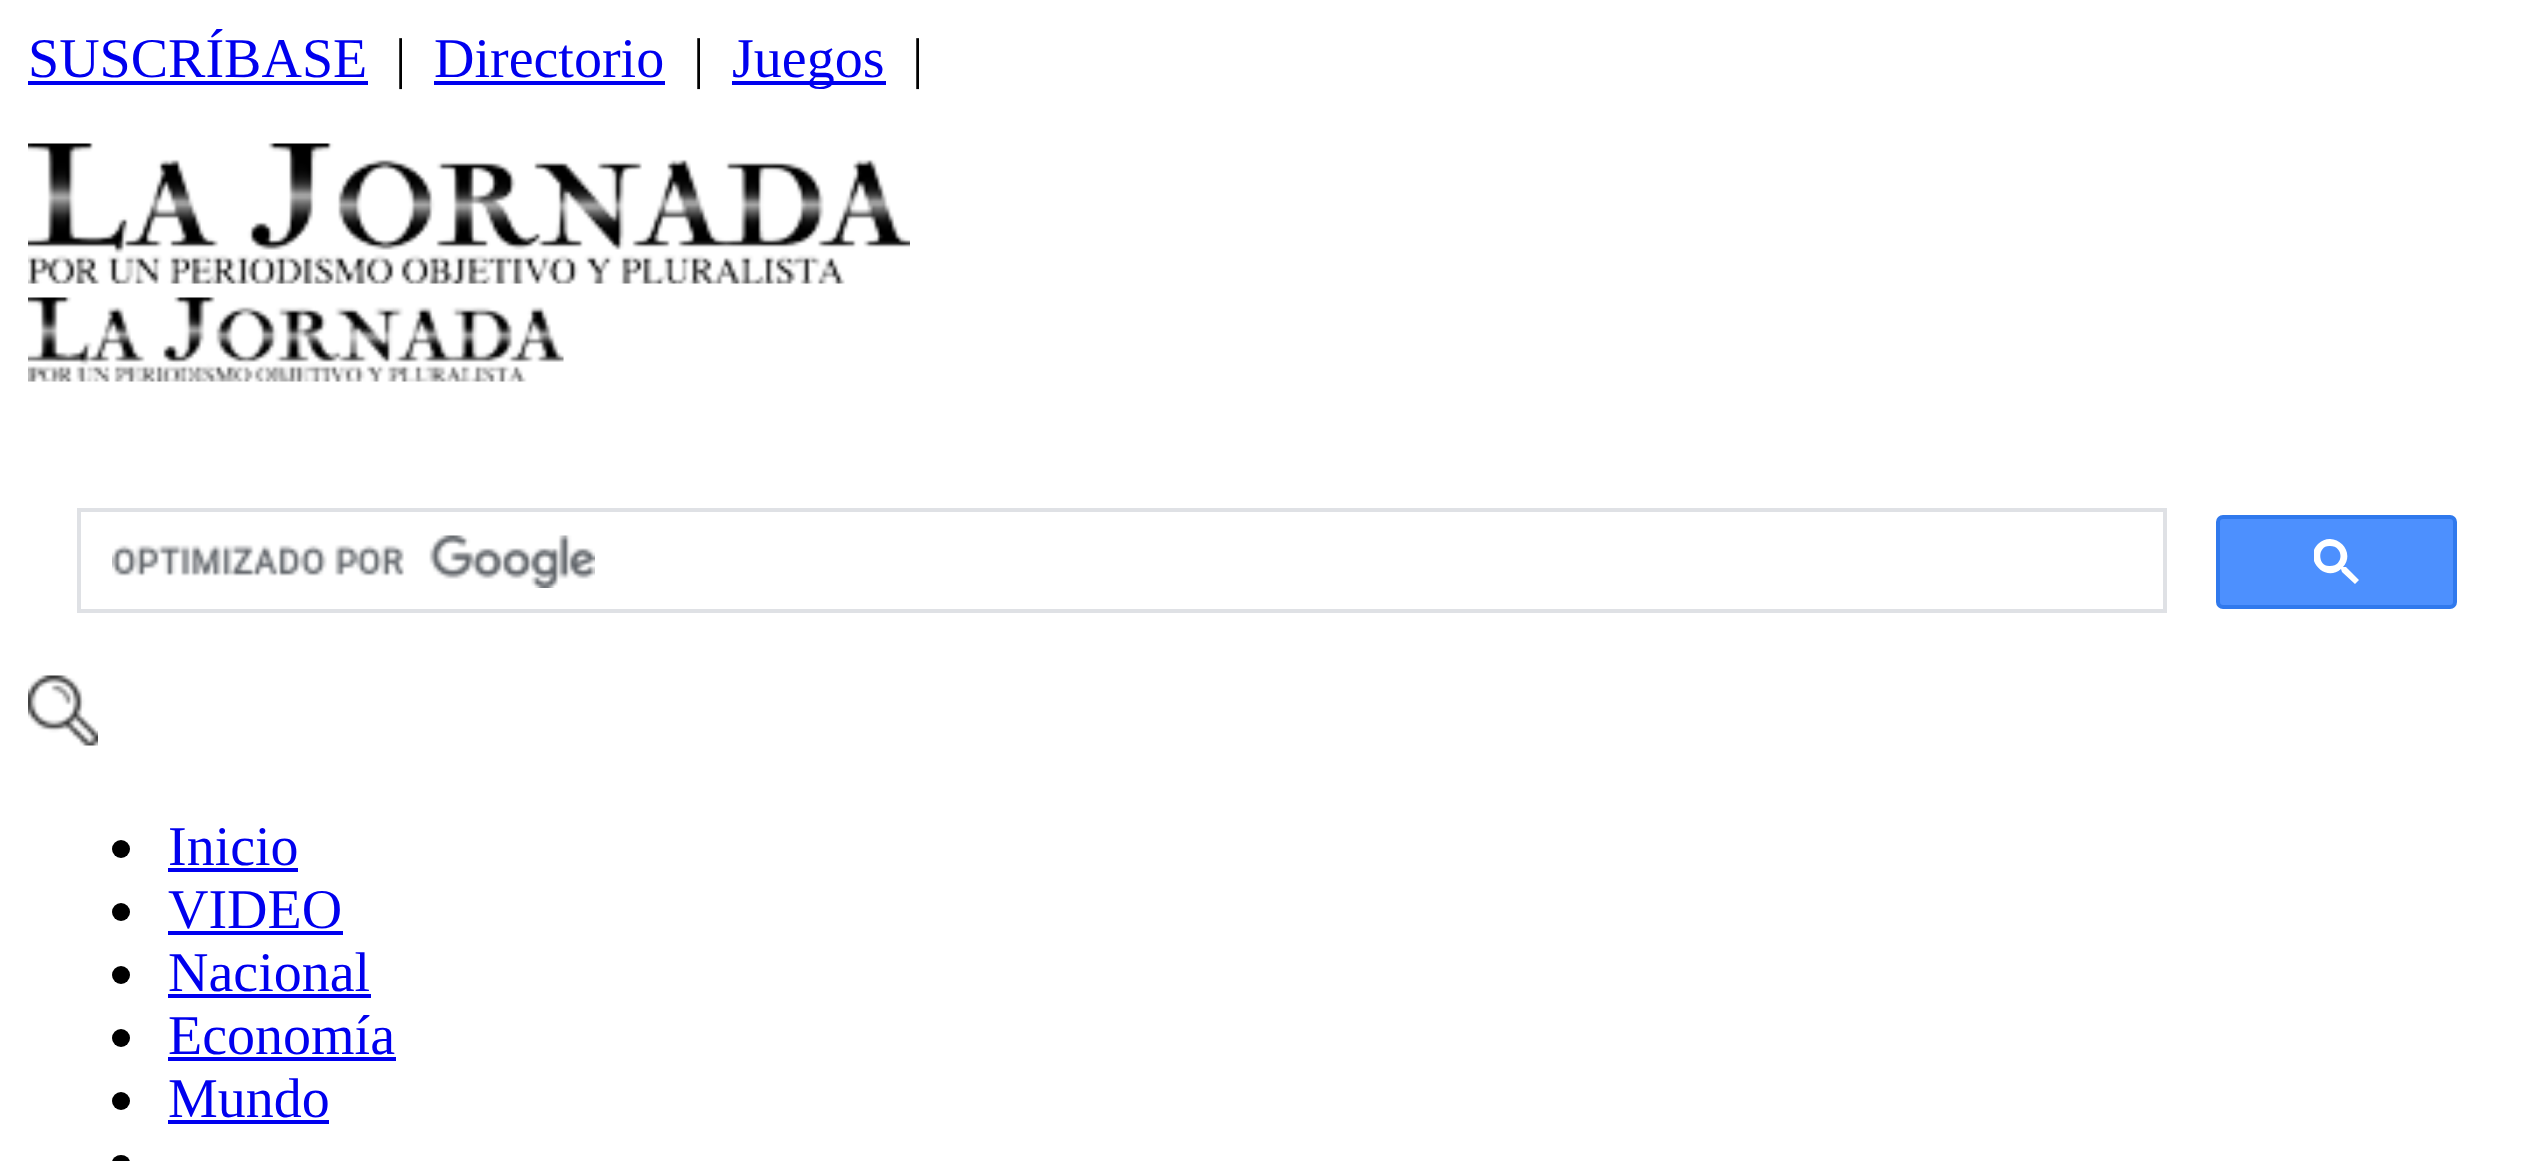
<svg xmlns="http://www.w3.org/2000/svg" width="2531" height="1161">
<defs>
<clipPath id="clip1"><rect x="2314" y="539" width="45" height="46"/></clipPath>
</defs>
<rect width="100%" height="100%" fill="#fff"/>
<text x="28" y="77" style="font-family:Liberation Serif;font-size:56px;fill:#00e">SUSCRÍBASE</text>
<rect x="28" y="81" width="340" height="4" fill="#00e"/>
<text x="395" y="77" style="font-family:Liberation Serif;font-size:56px;fill:#000">|</text>
<text x="434" y="77" style="font-family:Liberation Serif;font-size:56px;fill:#00e">Directorio</text>
<rect x="434" y="81" width="231" height="4" fill="#00e"/>
<text x="693" y="77" style="font-family:Liberation Serif;font-size:56px;fill:#000">|</text>
<rect x="732" y="81" width="154" height="4" fill="#00e"/>
<text x="732" y="77" style="font-family:Liberation Serif;font-size:56px;fill:#00e">Juegos</text>
<text x="912" y="77" style="font-family:Liberation Serif;font-size:56px;fill:#000">|</text>
<image x="28" y="143" width="882" height="141" href="media/1.png"/>
<image x="28" y="297" width="536" height="85" href="media/2.png"/>
<rect x="79" y="510" width="2086" height="101" fill="none" stroke="#dfe1e5" stroke-width="4"/>
<image x="112" y="535" width="483" height="53" href="media/3.png"/>
<rect x="2218" y="517" width="237" height="90" rx="5" fill="#4d90fe" stroke="#3079ed" stroke-width="4"/>
<g clip-path="url(#clip1)">
<path d="M2330 566c14 0 14-20 0-20c-13-1-13 21 0 20zm16 1l13 13l-4 4l-13-12l-1-3c-16 14-38-10-23-25c16-15 39 7 25 23h1z" fill="#fff"/>
</g>
<image x="28" y="675" width="70" height="71" href="media/4.png"/>
<circle cx="121" cy="849" r="9" fill="#000"/>
<text x="168" y="865" style="font-family:Liberation Serif;font-size:56px;fill:#00e">Inicio</text>
<rect x="168" y="868" width="130" height="4" fill="#00e"/>
<circle cx="121" cy="912" r="9" fill="#000"/>
<text x="168" y="928" style="font-family:Liberation Serif;font-size:56px;fill:#00e">VIDEO</text>
<rect x="168" y="931" width="175" height="4" fill="#00e"/>
<circle cx="121" cy="975" r="9" fill="#000"/>
<text x="168" y="991" style="font-family:Liberation Serif;font-size:56px;fill:#00e">Nacional</text>
<rect x="168" y="994" width="203" height="4" fill="#00e"/>
<circle cx="121" cy="1038" r="9" fill="#000"/>
<text x="168" y="1054" style="font-family:Liberation Serif;font-size:56px;fill:#00e">Economía</text>
<rect x="168" y="1057" width="228" height="4" fill="#00e"/>
<circle cx="121" cy="1101" r="9" fill="#000"/>
<text x="168" y="1117" style="font-family:Liberation Serif;font-size:56px;fill:#00e">Mundo</text>
<rect x="168" y="1120" width="161" height="4" fill="#00e"/>
<rect x="112" y="1155" width="18" height="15" rx="9" fill="#000"/>
</svg>
